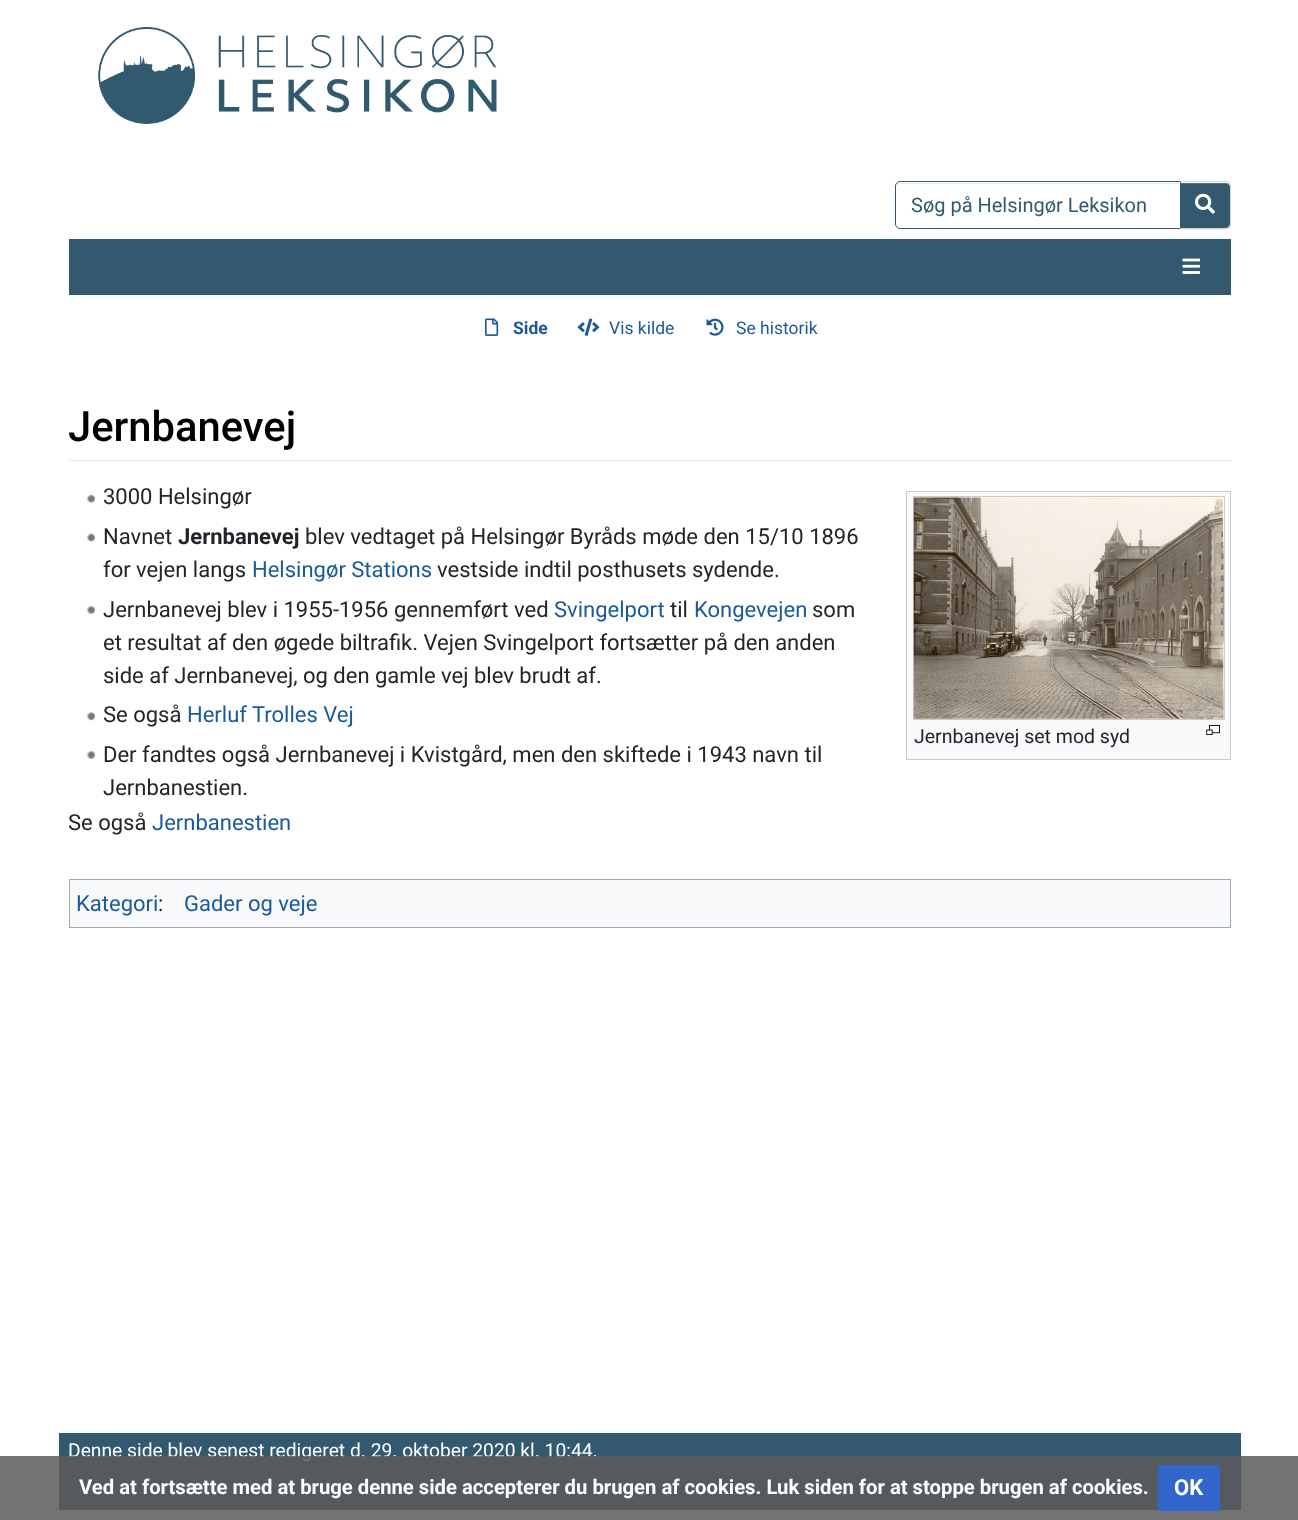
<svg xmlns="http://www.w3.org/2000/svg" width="1298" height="1520">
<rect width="100%" height="100%" fill="#fff"/>
<image x="98" y="27" width="399" height="97" href="media/1.png"/>
<path d="M900 184h280v-1h-280c-3 0-4 2-4 5c0-3 2-4 4-4z" fill="#ececec"/>
<path d="M900 181.5h280.5v47h-280.5c-2.5 0-4.5-2-4.5-4.5v-38c0-2.5 2-4.5 4.5-4.5z" fill="none" stroke="#32596e"/>
<text x="911" y="212" style="font-family:Roboto;font-size:20px;fill:#32596e">Søg på Helsingør Leksikon</text>
<rect x="1180" y="183" width="51" height="47" rx="5" fill="#00000012" filter="blur(0.5px)"/>
<path d="M1180 183h46c2 0 4 2 4 4v37c0 2-2 4-4 4h-46z" fill="#32596e"/>
<path d="M1180 184h46c2 0 4 1 4 4v-1c0-2-2-4-4-4h-46z" fill="#ffffff26"/>
<path d="M1180 181h46c3 0 5 2 5 5v38c0 3-2 5-5 5h-46zm0 1h46c2 0 4 2 4 4v38c0 2-2 4-4 4h-46z" fill="#ced4da" fill-rule="evenodd"/>
<image x="1195" y="193" width="20" height="21" href="media/2.png"/>
<rect x="69" y="239" width="1162" height="56" fill="#32596e"/>
<rect x="1171.5" y="249.5" width="39" height="35" rx="4.5" fill="none" stroke="#345a79"/>
<image x="1182" y="258" width="18" height="16" href="media/3.png"/>
<image x="485" y="318" width="14" height="18" href="media/4.png"/>
<text x="513" y="334" style="font-family:Roboto;font-size:17.5px;font-weight:bold;fill:#1b599b">Side</text>
<image x="577" y="318" width="23" height="18" href="media/5.png"/>
<text x="609" y="334" style="font-family:Roboto;font-size:17.5px;fill:#1b599b">Vis kilde</text>
<image x="706" y="318" width="18" height="18" href="media/6.png"/>
<text x="736" y="334" style="font-family:Roboto;font-size:17.5px;fill:#1b599b">Se historik</text>
<rect x="69" y="460" width="1162" height="1" fill="#e6e6e6"/>
<text x="68" y="441" style="font-family:Roboto;font-size:41.75px;font-weight:500;fill:#000">Jernbanevej</text>
<image x="87" y="494" width="8" height="9" href="media/7.png"/>
<text x="103" y="504" style="font-family:Roboto;font-size:22px;fill:#212529">3000 Helsingør</text>
<image x="87" y="533" width="8" height="9" href="media/8.png"/>
<text x="103" y="544" style="font-family:Roboto;font-size:22px;fill:#212529">Navnet</text>
<text x="178" y="544" style="font-family:Roboto;font-size:22px;font-weight:bold;fill:#212529">Jernbanevej</text>
<text x="305" y="544" style="font-family:Roboto;font-size:22px;fill:#212529">blev vedtaget på Helsingør Byråds møde den 15/10 1896</text>
<text x="103" y="577" style="font-family:Roboto;font-size:22px;fill:#212529">for vejen langs</text>
<text x="252" y="577" style="font-family:Roboto;font-size:22px;fill:#1b599b">Helsingør Stations</text>
<text x="437" y="577" style="font-family:Roboto;font-size:22px;fill:#212529">vestside indtil posthusets sydende.</text>
<image x="87" y="606" width="8" height="8" href="media/9.png"/>
<text x="103" y="617" style="font-family:Roboto;font-size:22px;fill:#212529">Jernbanevej blev i 1955-1956 gennemført ved</text>
<text x="554" y="617" style="font-family:Roboto;font-size:22px;fill:#1b599b">Svingelport</text>
<text x="670" y="617" style="font-family:Roboto;font-size:22px;fill:#212529">til</text>
<text x="694" y="617" style="font-family:Roboto;font-size:22px;fill:#1b599b">Kongevejen</text>
<text x="812" y="617" style="font-family:Roboto;font-size:22px;fill:#212529">som</text>
<text x="103" y="650" style="font-family:Roboto;font-size:22px;fill:#212529">et resultat af den øgede biltrafik. Vejen Svingelport fortsætter på den anden</text>
<text x="103" y="683" style="font-family:Roboto;font-size:22px;fill:#212529">side af Jernbanevej, og den gamle vej blev brudt af.</text>
<image x="87" y="712" width="8" height="9" href="media/10.png"/>
<text x="103" y="722" style="font-family:Roboto;font-size:22px;fill:#212529">Se også</text>
<text x="187" y="722" style="font-family:Roboto;font-size:22px;fill:#1b599b">Herluf Trolles Vej</text>
<rect x="906.5" y="491.5" width="324" height="268" fill="#f8f9fa" stroke="#c8ccd1"/>
<rect x="913.5" y="496.5" width="311" height="223" fill="#fff" stroke="#c8ccd1"/>
<image x="913" y="497" width="311" height="222" href="media/11.png"/>
<text x="914" y="743" style="font-family:Roboto;font-size:19.5px;fill:#212529">Jernbanevej set mod syd</text>
<image x="1206" y="725" width="14" height="10" href="media/12.png"/>
<image x="87" y="751" width="8" height="8" href="media/9.png"/>
<text x="103" y="762" style="font-family:Roboto;font-size:22px;fill:#212529">Der fandtes også Jernbanevej i Kvistgård, men den skiftede i 1943 navn til</text>
<text x="103" y="795" style="font-family:Roboto;font-size:22px;fill:#212529">Jernbanestien.</text>
<text x="68" y="830" style="font-family:Roboto;font-size:22px;fill:#212529">Se også</text>
<text x="152" y="830" style="font-family:Roboto;font-size:22px;fill:#1b599b">Jernbanestien</text>
<rect x="59" y="1433" width="1182" height="77" fill="#32596e"/>
<text x="68" y="1457" style="font-family:Roboto;font-size:19.25px;fill:#fff">Denne side blev senest redigeret d. 29. oktober 2020 kl. 10:44.</text>
<rect y="1456" width="1298" height="64" fill="#5a5a5ad9"/>
<text x="79" y="1494" style="font-family:Roboto;font-size:20.25px;font-weight:bold;fill:#fff">Ved at fortsætte med at bruge denne side accepterer du brugen af cookies. Luk siden for at stoppe brugen af cookies.</text>
<rect x="1158.5" y="1465.5" width="61" height="45" rx="2" fill="#36c" stroke="#36c"/>
<text x="1174" y="1495" style="font-family:Roboto;font-size:22px;font-weight:bold;fill:#fff">OK</text>
<rect x="69.5" y="879.5" width="1161" height="48" fill="#f8f9fa" stroke="#a2a9b1"/>
<text x="76" y="911" style="font-family:Roboto;font-size:22px;fill:#1b599b">Kategori</text>
<text x="158" y="911" style="font-family:Roboto;font-size:22px;fill:#212529">:</text>
<text x="184" y="911" style="font-family:Roboto;font-size:22px;fill:#1b599b">Gader og veje</text>
</svg>
